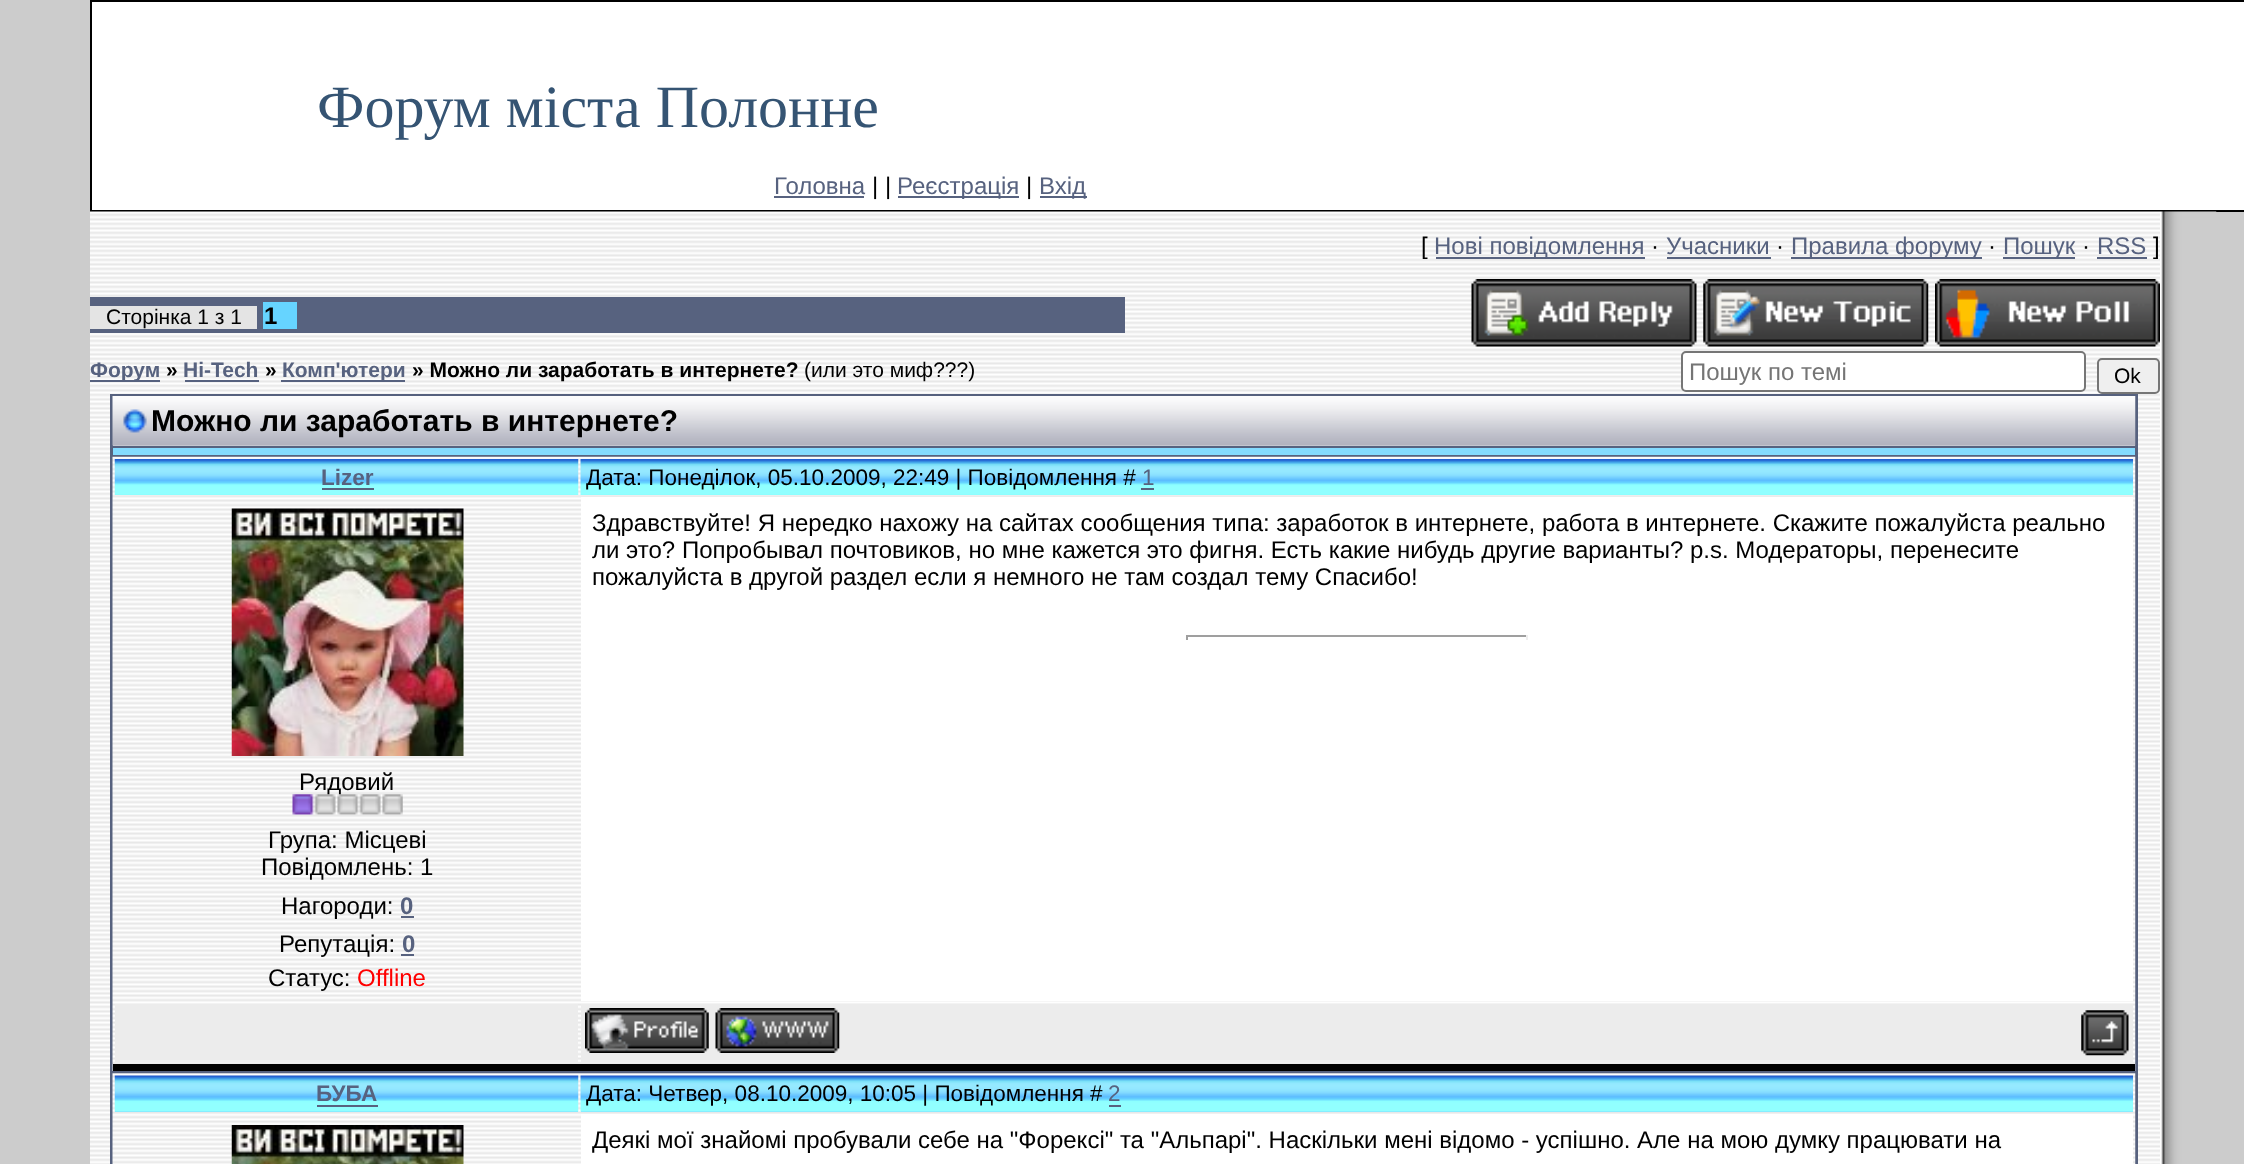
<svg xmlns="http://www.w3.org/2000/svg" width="2244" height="1164">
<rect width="100%" height="100%" fill="#fff"/>
<rect width="90" height="1164" fill="#ccc"/>
<rect x="91" y="1" width="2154" height="210" fill="none" stroke="#000" stroke-width="2"/>
<text x="317" y="127" style="font-family:Liberation Serif;font-size:60px;fill:#355473">Форум міста Полонне</text>
<text x="774" y="194" style="font-family:Liberation Sans;font-size:24px;fill:#57627f">Головна</text>
<rect x="774" y="196" width="90" height="2" fill="#57627f"/>
<text x="872" y="194" style="font-family:Liberation Sans;font-size:24px;fill:#000">| |</text>
<rect x="898" y="196" width="121" height="2" fill="#57627f"/>
<text x="897" y="194" style="font-family:Liberation Sans;font-size:24px;fill:#57627f">Реєстрація</text>
<text x="1026" y="194" style="font-family:Liberation Sans;font-size:24px;fill:#000">|</text>
<rect x="1040" y="196" width="47" height="2" fill="#57627f"/>
<text x="1039" y="194" style="font-family:Liberation Sans;font-size:24px;fill:#57627f">Вхід</text>
<image x="90" y="211" width="2070" height="953" href="media/1.png"/>
<text x="1421" y="254" style="font-family:Liberation Sans;font-size:24px;fill:#000">[</text>
<rect x="1436" y="257" width="209" height="2" fill="#57627f"/>
<text x="1434" y="254" style="font-family:Liberation Sans;font-size:24px;fill:#57627f">Нові повідомлення</text>
<text x="1651" y="254" style="font-family:Liberation Sans;font-size:24px;fill:#000">·</text>
<text x="1666" y="254" style="font-family:Liberation Sans;font-size:24px;fill:#57627f">Учасники</text>
<rect x="1667" y="257" width="104" height="2" fill="#57627f"/>
<text x="1776" y="254" style="font-family:Liberation Sans;font-size:24px;fill:#000">·</text>
<rect x="1791" y="257" width="191" height="2" fill="#57627f"/>
<text x="1791" y="254" style="font-family:Liberation Sans;font-size:24px;fill:#57627f">Правила форуму</text>
<text x="1988" y="254" style="font-family:Liberation Sans;font-size:24px;fill:#000">·</text>
<rect x="2003" y="257" width="72" height="2" fill="#57627f"/>
<text x="2003" y="254" style="font-family:Liberation Sans;font-size:24px;fill:#57627f">Пошук</text>
<text x="2082" y="254" style="font-family:Liberation Sans;font-size:24px;fill:#000">·</text>
<text x="2097" y="254" style="font-family:Liberation Sans;font-size:24px;fill:#57627f">RSS</text>
<rect x="2097" y="257" width="50" height="2" fill="#57627f"/>
<text x="2153" y="254" style="font-family:Liberation Sans;font-size:24px;fill:#000">]</text>
<rect x="90" y="297" width="1035" height="36" fill="#57627f"/>
<rect x="90" y="306" width="167" height="23" fill="#e4e4e4"/>
<text x="106" y="324" style="font-family:Liberation Sans;font-size:21px;fill:#000">Сторінка 1 з 1</text>
<rect x="263" y="302" width="34" height="27" fill="#66d4ff"/>
<text x="264" y="324" style="font-family:Liberation Sans;font-size:24px;font-weight:bold;fill:#000">1</text>
<image x="1471" y="279" width="226" height="68" href="media/2.png"/>
<image x="1703" y="279" width="226" height="68" href="media/3.png"/>
<image x="1935" y="279" width="225" height="68" href="media/4.png"/>
<rect x="90" y="380" width="70" height="2" fill="#57627f"/>
<text x="90" y="377" style="font-family:Liberation Sans;font-size:21px;font-weight:bold;fill:#57627f">Форум</text>
<text x="166" y="377" style="font-family:Liberation Sans;font-size:21px;font-weight:bold;fill:#000">»</text>
<text x="183" y="377" style="font-family:Liberation Sans;font-size:21px;font-weight:bold;fill:#57627f">Hi-Tech</text>
<rect x="185" y="380" width="74" height="2" fill="#57627f"/>
<text x="265" y="377" style="font-family:Liberation Sans;font-size:21px;font-weight:bold;fill:#000">»</text>
<rect x="281" y="380" width="124" height="2" fill="#57627f"/>
<text x="282" y="377" style="font-family:Liberation Sans;font-size:21px;font-weight:bold;fill:#57627f">Комп'ютери</text>
<text x="412" y="377" style="font-family:Liberation Sans;font-size:21px;font-weight:bold;fill:#000">» Можно ли заработать в интернете?</text>
<text x="804" y="377" style="font-family:Liberation Sans;font-size:21px;fill:#000">(или это миф???)</text>
<rect x="1682" y="352" width="403" height="39" rx="4" fill="#fff" stroke="#767676" stroke-width="2"/>
<text x="1689" y="380" style="font-family:Liberation Sans;font-size:24px;fill:#757575">Пошук по темі</text>
<rect x="2098" y="359" width="61" height="34" rx="4" fill="#efefef" stroke="#767676" stroke-width="2"/>
<text x="2114" y="383" style="font-family:Liberation Sans;font-size:21px;fill:#000">Ok</text>
<rect x="110" y="394" width="2028" height="770" fill="#57627f"/>
<rect x="113" y="445" width="2022" height="1" fill="#d6d7dd"/>
<image x="112" y="396" width="2024" height="50" href="media/5.png"/>
<text x="151" y="431" style="font-family:Liberation Sans;font-size:30px;font-weight:bold;fill:#000">Можно ли заработать в интернете?</text>
<rect x="113" y="448" width="2022" height="7" fill="#84dbff"/>
<image x="112" y="456" width="2024" height="615" href="media/6.png"/>
<rect x="113" y="1064" width="2022" height="7" fill="#000"/>
<image x="114" y="459" width="465" height="36" href="media/7.png"/>
<text x="321" y="485" style="font-family:Liberation Sans;font-size:22.5px;font-weight:bold;fill:#57627f">Lizer</text>
<rect x="322" y="488" width="52" height="2" fill="#57627f"/>
<image x="580" y="459" width="1553" height="36" href="media/8.png"/>
<text x="586" y="485" style="font-family:Liberation Sans;font-size:22.5px;fill:#000">Дата: Понеділок, 05.10.2009, 22:49 | Повідомлення #</text>
<text x="1142" y="485" style="font-family:Liberation Sans;font-size:22.5px;fill:#57627f">1</text>
<rect x="1141" y="488" width="13" height="2" fill="#57627f"/>
<rect x="581" y="497" width="1552" height="504" fill="#fff"/>
<text x="592" y="531" style="font-family:Liberation Sans;font-size:24px;fill:#000">Здравствуйте! Я нередко нахожу на сайтах сообщения типа: заработок в интернете, работа в интернете. Скажите пожалуйста реально</text>
<text x="592" y="558" style="font-family:Liberation Sans;font-size:24px;fill:#000">ли это? Попробывал почтовиков, но мне кажется это фигня. Есть какие нибудь другие варианты? p.s. Модераторы, перенесите</text>
<text x="592" y="585" style="font-family:Liberation Sans;font-size:24px;fill:#000">пожалуйста в другой раздел если я немного не там создал тему Спасибо!</text>
<rect x="1186" y="635" width="342" height="2" fill="#9f9f9f"/>
<rect x="1526" y="635" width="2" height="5" fill="#eee"/>
<rect x="1186" y="635" width="2" height="5" fill="#9f9f9f"/>
<image x="231" y="508" width="233" height="248" href="media/9.png"/>
<text x="299" y="790" style="font-family:Liberation Sans;font-size:24px;fill:#000">Рядовий</text>
<image x="292" y="794" width="111" height="21" href="media/10.png"/>
<text x="268" y="848" style="font-family:Liberation Sans;font-size:24px;fill:#000">Група: Місцеві</text>
<text x="261" y="875" style="font-family:Liberation Sans;font-size:24px;fill:#000">Повідомлень: 1</text>
<text x="281" y="914" style="font-family:Liberation Sans;font-size:24px;fill:#000">Нагороди:</text>
<text x="400" y="914" style="font-family:Liberation Sans;font-size:24px;font-weight:bold;fill:#57627f">0</text>
<rect x="401" y="916" width="13" height="2" fill="#57627f"/>
<text x="279" y="952" style="font-family:Liberation Sans;font-size:24px;fill:#000">Репутація:</text>
<text x="402" y="952" style="font-family:Liberation Sans;font-size:24px;font-weight:bold;fill:#57627f">0</text>
<rect x="401" y="954" width="13" height="2" fill="#57627f"/>
<text x="268" y="986" style="font-family:Liberation Sans;font-size:24px;fill:#000">Статус:</text>
<text x="357" y="986" style="font-family:Liberation Sans;font-size:24px;fill:#f00">Offline</text>
<rect x="115" y="1004" width="463" height="58" fill="#ececec"/>
<rect x="581" y="1004" width="1552" height="58" fill="#ececec"/>
<image x="585" y="1008" width="124" height="45" href="media/11.png"/>
<image x="715" y="1008" width="125" height="45" href="media/12.png"/>
<image x="2081" y="1010" width="48" height="46" href="media/13.png"/>
<image x="112" y="1073" width="2024" height="91" href="media/14.png"/>
<rect x="115" y="1111" width="463" height="1" fill="#84dbff"/>
<image x="114" y="1075" width="465" height="37" href="media/15.png"/>
<text x="316" y="1101" style="font-family:Liberation Sans;font-size:22.5px;font-weight:bold;fill:#57627f">БУБА</text>
<rect x="317" y="1105" width="61" height="2" fill="#57627f"/>
<rect x="581" y="1111" width="1552" height="1" fill="#84dbff"/>
<image x="580" y="1075" width="1553" height="37" href="media/16.png"/>
<text x="586" y="1101" style="font-family:Liberation Sans;font-size:22.5px;fill:#000">Дата: Четвер, 08.10.2009, 10:05 | Повідомлення #</text>
<text x="1108" y="1101" style="font-family:Liberation Sans;font-size:22.5px;fill:#57627f">2</text>
<rect x="1109" y="1105" width="12" height="2" fill="#57627f"/>
<image x="231" y="1125" width="233" height="39" href="media/17.png"/>
<rect x="581" y="1114" width="1552" height="50" fill="#fff"/>
<text x="592" y="1148" style="font-family:Liberation Sans;font-size:24px;fill:#000">Деякі мої знайомі пробували себе на "Форексі" та "Альпарі". Наскільки мені відомо - успішно. Але на мою думку працювати на</text>
<rect x="2216" y="212" width="28" height="952" fill="#ccc"/>
<image x="2160" y="211" width="57" height="953" href="media/18.png"/>
</svg>
